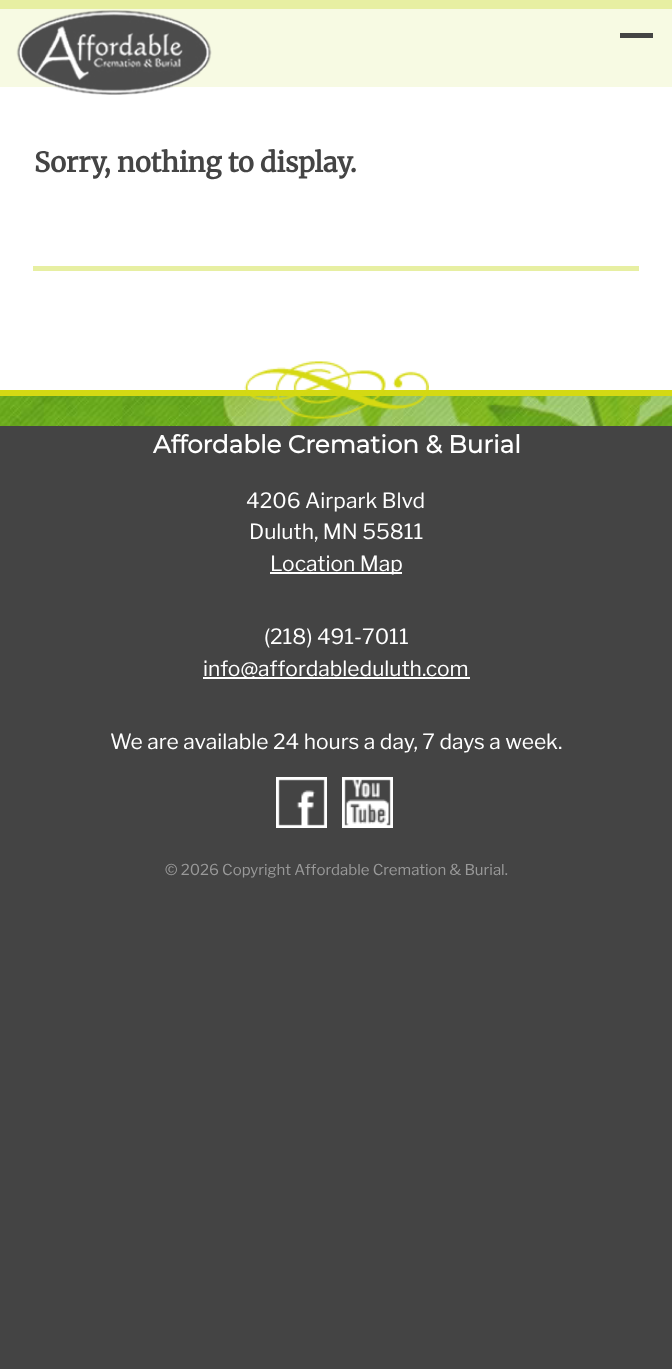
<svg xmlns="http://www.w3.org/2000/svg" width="672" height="1369">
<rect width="100%" height="100%" fill="#444"/>
<rect width="672" height="9" fill="#e7efa2"/>
<rect y="9" width="672" height="78" fill="#f7fae3"/>
<rect y="87" width="672" height="303" fill="#fff"/>
<image x="16" y="10" width="196" height="85" href="media/1.png"/>
<rect x="620" y="33" width="33" height="5" fill="#444"/>
<image x="0" y="396" width="672" height="30" href="media/2.png"/>
<rect y="390" width="672" height="6" fill="#d4d913"/>
<text x="34" y="172" style="font-family:Merriweather;font-size:27px;font-weight:bold;fill:#444">Sorry, nothing to display.</text>
<rect x="33" y="266" width="606" height="5" fill="#e7efa2"/>
<image x="244" y="361" width="185" height="58" href="media/3.png"/>
<text x="153" y="453" style="font-family:Montserrat;font-size:24.6px;font-weight:bold;fill:#fff">Affordable Cremation &amp; Burial</text>
<text x="246" y="508" style="font-family:Libre Franklin;font-size:21px;font-weight:100;fill:#fff">4206 Airpark Blvd</text>
<text x="249" y="539" style="font-family:Libre Franklin;font-size:21px;font-weight:100;fill:#fff">Duluth, MN 55811</text>
<rect x="270" y="572" width="132" height="2" fill="#fff"/>
<text x="270" y="571" style="font-family:Libre Franklin;font-size:21px;font-weight:100;fill:#fff">Location Map</text>
<text x="264" y="644" style="font-family:Libre Franklin;font-size:21px;font-weight:100;fill:#fff">(218) 491-7011</text>
<rect x="203" y="677" width="267" height="2" fill="#fff"/>
<text x="203" y="676" style="font-family:Libre Franklin;font-size:21px;font-weight:100;fill:#fff">info@affordableduluth.com</text>
<text x="110" y="749" style="font-family:Libre Franklin;font-size:21px;font-weight:100;fill:#fff">We are available 24 hours a day, 7 days a week.</text>
<image x="276" y="777" width="51" height="51" href="media/4.png"/>
<image x="342" y="777" width="51" height="51" href="media/5.png"/>
<text x="165" y="875" style="font-family:Libre Franklin;font-size:15px;font-weight:100;fill:#999">© 2026 Copyright Affordable Cremation &amp; Burial.</text>
</svg>
